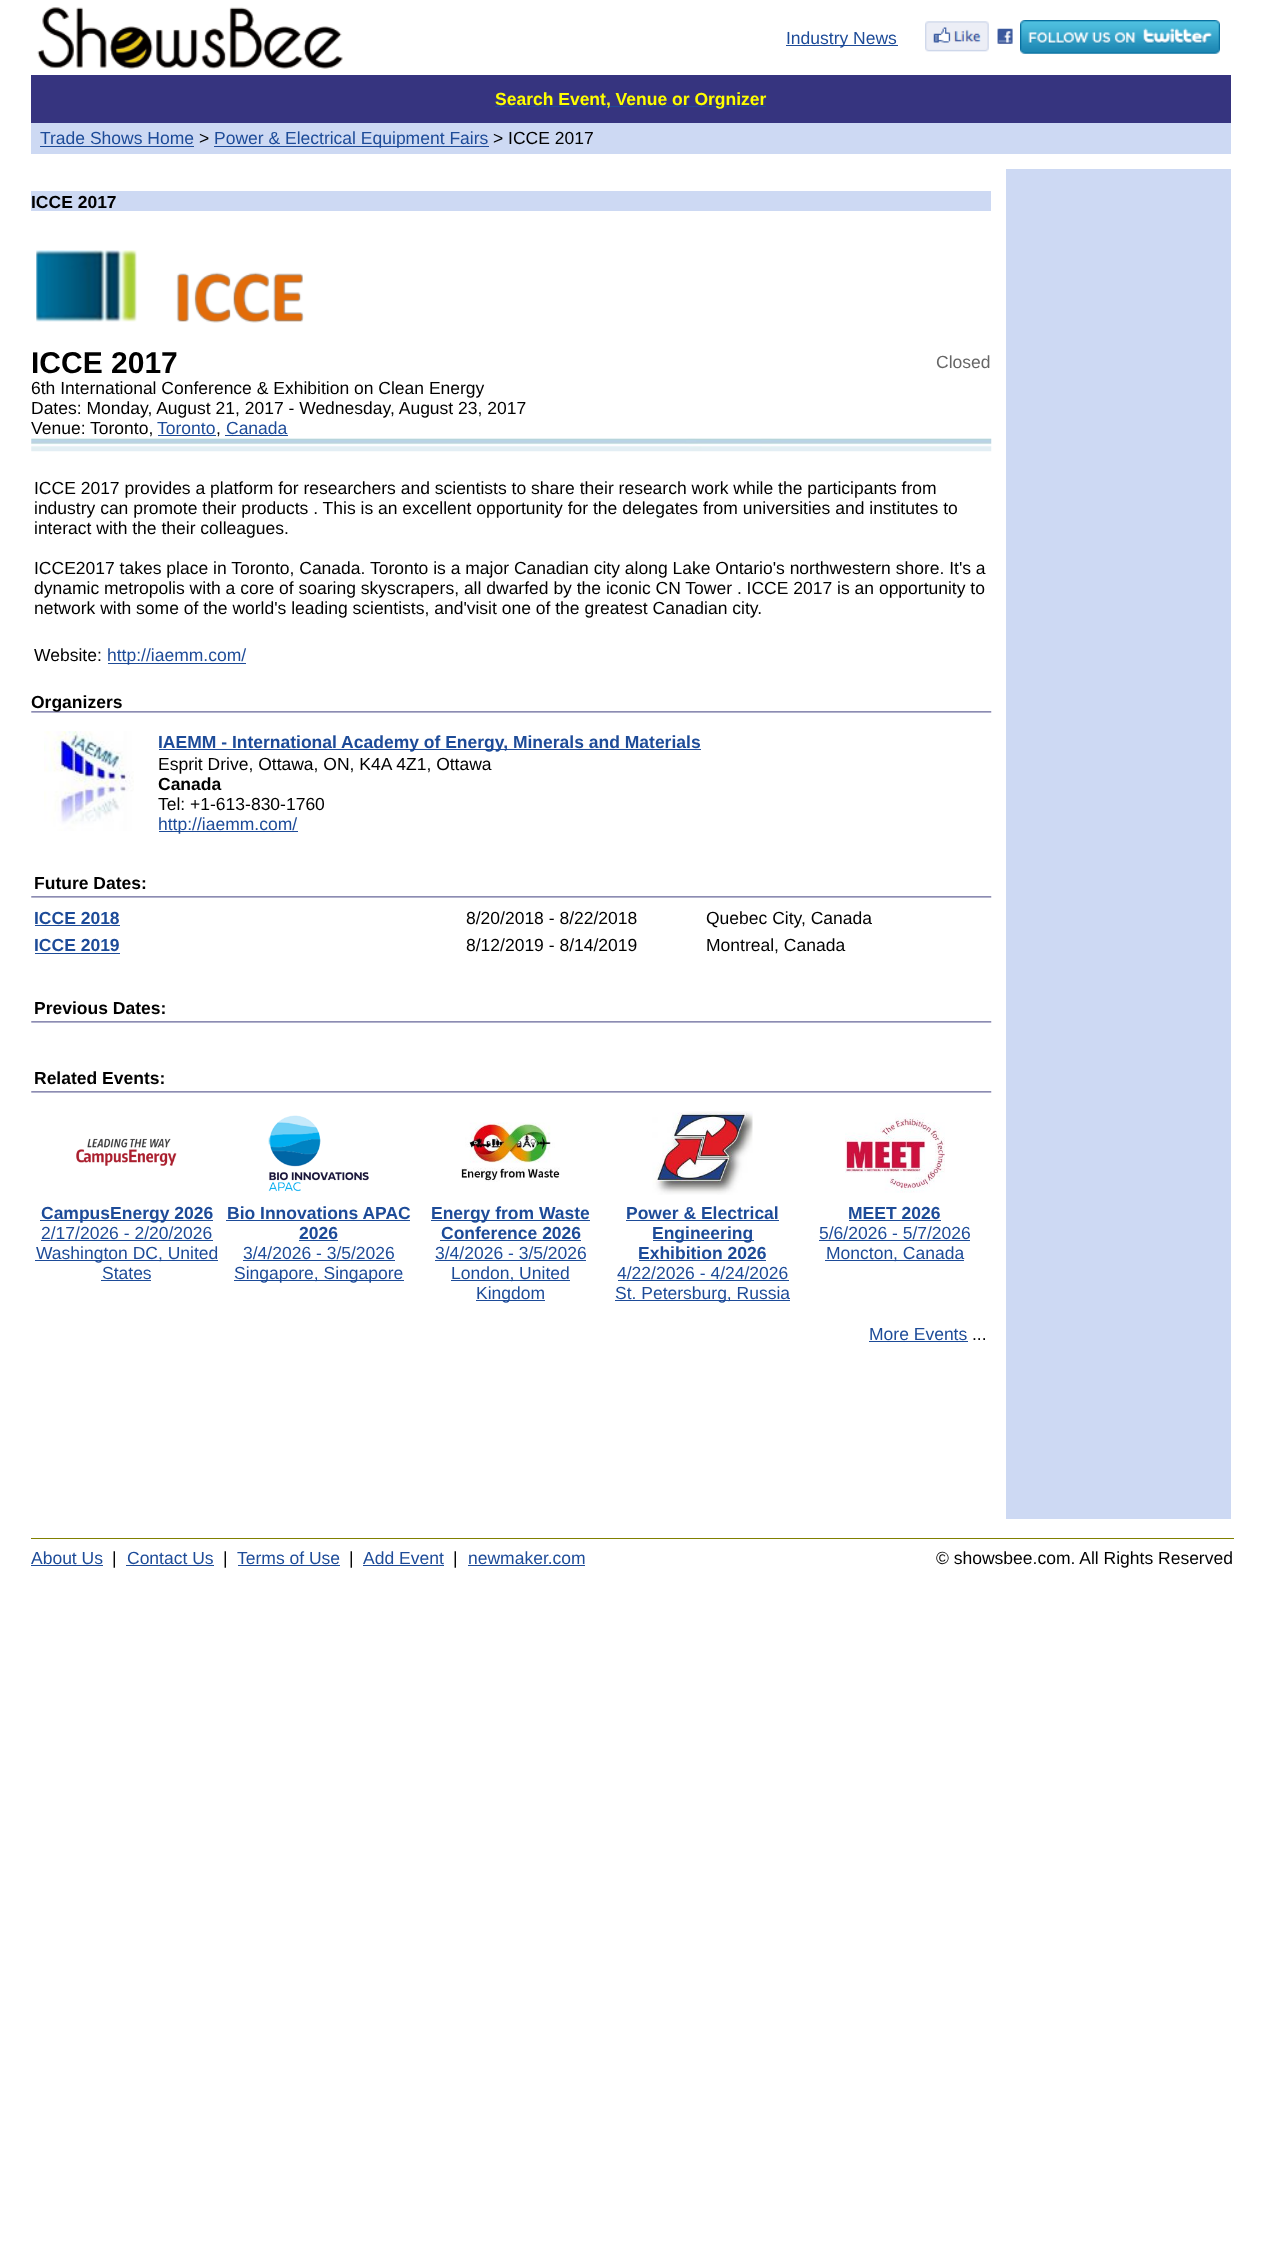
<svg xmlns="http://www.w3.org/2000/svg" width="1261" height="2261">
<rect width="100%" height="100%" fill="#fff"/>
<image x="37" y="7" width="306" height="62" href="media/1.png"/>
<rect x="786" y="45" width="112" height="1" fill="#1d4b98"/>
<text x="786" y="44" style="font-family:Liberation Sans;font-size:17.5px;fill:#1d4b98">Industry News</text>
<image x="925" y="21" width="88" height="31" href="media/2.png"/>
<image x="1020" y="20" width="200" height="34" href="media/3.png"/>
<rect x="31" y="75" width="1200" height="48" fill="#36347f"/>
<rect x="495" y="106" width="271" height="1" fill="#1d4b98"/>
<text x="495" y="105" style="font-family:Liberation Sans;font-size:17.5px;font-weight:bold;fill:#ff0">Search Event, Venue or Orgnizer</text>
<rect x="31" y="123" width="1200" height="31" fill="#cdd9f3"/>
<text x="40" y="144" style="font-family:Liberation Sans;font-size:17.5px;fill:#1d4b98">Trade Shows Home</text>
<rect x="40" y="146" width="154" height="1" fill="#1d4b98"/>
<text x="199" y="144" style="font-family:Liberation Sans;font-size:17.5px;fill:#000">&gt;</text>
<rect x="214" y="146" width="275" height="1" fill="#1d4b98"/>
<text x="214" y="144" style="font-family:Liberation Sans;font-size:17.5px;fill:#1d4b98">Power &amp; Electrical Equipment Fairs</text>
<text x="493" y="144" style="font-family:Liberation Sans;font-size:17.5px;fill:#000">&gt; ICCE 2017</text>
<rect x="31" y="191" width="960" height="20" fill="#cdd9f3"/>
<text x="31" y="208" style="font-family:Liberation Sans;font-size:17.5px;font-weight:bold;fill:#000">ICCE 2017</text>
<image x="36" y="250" width="268" height="73" href="media/4.png"/>
<text x="31" y="373" style="font-family:Liberation Sans;font-size:30px;font-weight:bold;fill:#000">ICCE 2017</text>
<text x="936" y="368" style="font-family:Liberation Sans;font-size:17.5px;fill:#666">Closed</text>
<text x="31" y="394" style="font-family:Liberation Sans;font-size:17.5px;fill:#000">6th International Conference &amp; Exhibition on Clean Energy</text>
<text x="31" y="414" style="font-family:Liberation Sans;font-size:17.5px;fill:#000">Dates: Monday, August 21, 2017 - Wednesday, August 23, 2017</text>
<text x="31" y="434" style="font-family:Liberation Sans;font-size:17.5px;fill:#000">Venue: Toronto,</text>
<text x="157" y="434" style="font-family:Liberation Sans;font-size:17.5px;fill:#1d4b98">Toronto</text>
<rect x="158" y="435" width="58" height="1" fill="#1d4b98"/>
<text x="216" y="434" style="font-family:Liberation Sans;font-size:17.5px;fill:#000">,</text>
<text x="226" y="434" style="font-family:Liberation Sans;font-size:17.5px;fill:#1d4b98">Canada</text>
<rect x="225" y="435" width="63" height="1" fill="#1d4b98"/>
<image x="31" y="438" width="961" height="14" href="media/5.png"/>
<text x="34" y="494" style="font-family:Liberation Sans;font-size:17.5px;fill:#000">ICCE 2017 provides a platform for researchers and scientists to share their research work while the participants from</text>
<text x="34" y="514" style="font-family:Liberation Sans;font-size:17.5px;fill:#000">industry can promote their products . This is an excellent opportunity for the delegates from universities and institutes to</text>
<text x="34" y="534" style="font-family:Liberation Sans;font-size:17.5px;fill:#000">interact with the their colleagues.</text>
<text x="34" y="574" style="font-family:Liberation Sans;font-size:17.5px;fill:#000">ICCE2017 takes place in Toronto, Canada. Toronto is a major Canadian city along Lake Ontario's northwestern shore. It's a</text>
<text x="34" y="594" style="font-family:Liberation Sans;font-size:17.5px;fill:#000">dynamic metropolis with a core of soaring skyscrapers, all dwarfed by the iconic CN Tower . ICCE 2017 is an opportunity to</text>
<text x="34" y="614" style="font-family:Liberation Sans;font-size:17.5px;fill:#000">network with some of the world's leading scientists, and'visit one of the greatest Canadian city.</text>
<text x="34" y="661" style="font-family:Liberation Sans;font-size:17.5px;fill:#000">Website:</text>
<rect x="108" y="663" width="138" height="1" fill="#1d4b98"/>
<text x="107" y="661" style="font-family:Liberation Sans;font-size:17.5px;fill:#1d4b98">http://iaemm.com/</text>
<image x="31" y="711" width="961" height="2" href="media/6.png"/>
<text x="31" y="708" style="font-family:Liberation Sans;font-size:17.5px;font-weight:bold;fill:#000">Organizers</text>
<image x="44" y="731" width="90" height="100" href="media/7.png"/>
<rect x="159" y="749" width="542" height="1" fill="#1d4b98"/>
<text x="158" y="748" style="font-family:Liberation Sans;font-size:17.5px;font-weight:bold;fill:#1d4b98">IAEMM - International Academy of Energy, Minerals and Materials</text>
<text x="158" y="770" style="font-family:Liberation Sans;font-size:17.5px;fill:#000">Esprit Drive, Ottawa, ON, K4A 4Z1, Ottawa</text>
<text x="158" y="790" style="font-family:Liberation Sans;font-size:17.5px;font-weight:bold;fill:#000">Canada</text>
<text x="158" y="810" style="font-family:Liberation Sans;font-size:17.5px;fill:#000">Tel: +1-613-830-1760</text>
<rect x="159" y="831" width="139" height="1" fill="#1d4b98"/>
<text x="158" y="830" style="font-family:Liberation Sans;font-size:17.5px;fill:#1d4b98">http://iaemm.com/</text>
<text x="34" y="889" style="font-family:Liberation Sans;font-size:17.5px;font-weight:bold;fill:#000">Future Dates:</text>
<image x="31" y="896" width="961" height="2" href="media/8.png"/>
<text x="34" y="924" style="font-family:Liberation Sans;font-size:17.5px;font-weight:bold;fill:#1d4b98">ICCE 2018</text>
<rect x="35" y="925" width="85" height="1" fill="#1d4b98"/>
<text x="466" y="924" style="font-family:Liberation Sans;font-size:17.5px;fill:#000">8/20/2018 - 8/22/2018</text>
<text x="706" y="924" style="font-family:Liberation Sans;font-size:17.5px;fill:#000">Quebec City, Canada</text>
<text x="34" y="951" style="font-family:Liberation Sans;font-size:17.5px;font-weight:bold;fill:#1d4b98">ICCE 2019</text>
<rect x="35" y="953" width="85" height="1" fill="#1d4b98"/>
<text x="466" y="951" style="font-family:Liberation Sans;font-size:17.5px;fill:#000">8/12/2019 - 8/14/2019</text>
<text x="706" y="951" style="font-family:Liberation Sans;font-size:17.5px;fill:#000">Montreal, Canada</text>
<text x="34" y="1014" style="font-family:Liberation Sans;font-size:17.5px;font-weight:bold;fill:#000">Previous Dates:</text>
<image x="31" y="1021" width="961" height="2" href="media/6.png"/>
<text x="34" y="1084" style="font-family:Liberation Sans;font-size:17.5px;font-weight:bold;fill:#000">Related Events:</text>
<image x="31" y="1091" width="961" height="2" href="media/8.png"/>
<image x="76" y="1138" width="101" height="28" href="media/9.png"/>
<rect x="40" y="1220" width="173" height="1" fill="#1d4b98"/>
<text x="41" y="1219" style="font-family:Liberation Sans;font-size:17.5px;font-weight:bold;fill:#1d4b98">CampusEnergy 2026</text>
<text x="41" y="1239" style="font-family:Liberation Sans;font-size:17.5px;fill:#1d4b98">2/17/2026 - 2/20/2026</text>
<rect x="41" y="1240" width="172" height="1" fill="#1d4b98"/>
<rect x="35" y="1260" width="183" height="1" fill="#1d4b98"/>
<text x="36" y="1259" style="font-family:Liberation Sans;font-size:17.5px;fill:#1d4b98">Washington DC, United</text>
<text x="102" y="1279" style="font-family:Liberation Sans;font-size:17.5px;fill:#1d4b98">States</text>
<rect x="101" y="1280" width="50" height="1" fill="#1d4b98"/>
<image x="268" y="1115" width="101" height="77" href="media/10.png"/>
<text x="227" y="1219" style="font-family:Liberation Sans;font-size:17.5px;font-weight:bold;fill:#1d4b98">Bio Innovations APAC</text>
<rect x="226" y="1220" width="184" height="1" fill="#1d4b98"/>
<text x="299" y="1239" style="font-family:Liberation Sans;font-size:17.5px;font-weight:bold;fill:#1d4b98">2026</text>
<rect x="299" y="1240" width="39" height="1" fill="#1d4b98"/>
<text x="243" y="1259" style="font-family:Liberation Sans;font-size:17.5px;fill:#1d4b98">3/4/2026 - 3/5/2026</text>
<rect x="243" y="1260" width="152" height="1" fill="#1d4b98"/>
<rect x="234" y="1280" width="170" height="1" fill="#1d4b98"/>
<text x="234" y="1279" style="font-family:Liberation Sans;font-size:17.5px;fill:#1d4b98">Singapore, Singapore</text>
<image x="461" y="1122" width="99" height="60" href="media/11.png"/>
<rect x="431" y="1220" width="159" height="1" fill="#1d4b98"/>
<text x="431" y="1219" style="font-family:Liberation Sans;font-size:17.5px;font-weight:bold;fill:#1d4b98">Energy from Waste</text>
<text x="441" y="1239" style="font-family:Liberation Sans;font-size:17.5px;font-weight:bold;fill:#1d4b98">Conference 2026</text>
<rect x="440" y="1240" width="141" height="1" fill="#1d4b98"/>
<text x="435" y="1259" style="font-family:Liberation Sans;font-size:17.5px;fill:#1d4b98">3/4/2026 - 3/5/2026</text>
<rect x="435" y="1260" width="151" height="1" fill="#1d4b98"/>
<rect x="451" y="1280" width="119" height="1" fill="#1d4b98"/>
<text x="451" y="1279" style="font-family:Liberation Sans;font-size:17.5px;fill:#1d4b98">London, United</text>
<rect x="476" y="1300" width="69" height="1" fill="#1d4b98"/>
<text x="476" y="1299" style="font-family:Liberation Sans;font-size:17.5px;fill:#1d4b98">Kingdom</text>
<image x="652" y="1111" width="101" height="84" href="media/12.png"/>
<text x="626" y="1219" style="font-family:Liberation Sans;font-size:17.5px;font-weight:bold;fill:#1d4b98">Power &amp; Electrical</text>
<rect x="626" y="1220" width="153" height="1" fill="#1d4b98"/>
<rect x="653" y="1240" width="101" height="1" fill="#1d4b98"/>
<text x="652" y="1239" style="font-family:Liberation Sans;font-size:17.5px;font-weight:bold;fill:#1d4b98">Engineering</text>
<text x="638" y="1259" style="font-family:Liberation Sans;font-size:17.5px;font-weight:bold;fill:#1d4b98">Exhibition 2026</text>
<rect x="639" y="1260" width="127" height="1" fill="#1d4b98"/>
<text x="617" y="1279" style="font-family:Liberation Sans;font-size:17.5px;fill:#1d4b98">4/22/2026 - 4/24/2026</text>
<rect x="618" y="1280" width="171" height="1" fill="#1d4b98"/>
<rect x="615" y="1300" width="175" height="1" fill="#1d4b98"/>
<text x="615" y="1299" style="font-family:Liberation Sans;font-size:17.5px;fill:#1d4b98">St. Petersburg, Russia</text>
<image x="845" y="1113" width="100" height="80" href="media/13.png"/>
<text x="848" y="1219" style="font-family:Liberation Sans;font-size:17.5px;font-weight:bold;fill:#1d4b98">MEET 2026</text>
<rect x="849" y="1220" width="92" height="1" fill="#1d4b98"/>
<text x="819" y="1239" style="font-family:Liberation Sans;font-size:17.5px;fill:#1d4b98">5/6/2026 - 5/7/2026</text>
<rect x="819" y="1240" width="151" height="1" fill="#1d4b98"/>
<rect x="825" y="1260" width="139" height="1" fill="#1d4b98"/>
<text x="826" y="1259" style="font-family:Liberation Sans;font-size:17.5px;fill:#1d4b98">Moncton, Canada</text>
<text x="869" y="1340" style="font-family:Liberation Sans;font-size:17.5px;fill:#1d4b98">More Events</text>
<rect x="869" y="1341" width="99" height="1" fill="#1d4b98"/>
<text x="972" y="1340" style="font-family:Liberation Sans;font-size:17.5px;fill:#000">...</text>
<rect x="1006" y="169" width="225" height="1350" fill="#cdd9f3"/>
<rect x="31" y="1538" width="1203" height="1" fill="#808000"/>
<text x="31" y="1564" style="font-family:Liberation Sans;font-size:17.5px;fill:#1d4b98">About Us</text>
<rect x="31" y="1565" width="72" height="1" fill="#1d4b98"/>
<text x="112" y="1564" style="font-family:Liberation Sans;font-size:17.5px;fill:#000">|</text>
<text x="127" y="1564" style="font-family:Liberation Sans;font-size:17.5px;fill:#1d4b98">Contact Us</text>
<rect x="126" y="1565" width="88" height="1" fill="#1d4b98"/>
<text x="223" y="1564" style="font-family:Liberation Sans;font-size:17.5px;fill:#000">|</text>
<text x="237" y="1564" style="font-family:Liberation Sans;font-size:17.5px;fill:#1d4b98">Terms of Use</text>
<rect x="238" y="1565" width="102" height="1" fill="#1d4b98"/>
<text x="349" y="1564" style="font-family:Liberation Sans;font-size:17.5px;fill:#000">|</text>
<text x="363" y="1564" style="font-family:Liberation Sans;font-size:17.5px;fill:#1d4b98">Add Event</text>
<rect x="363" y="1565" width="81" height="1" fill="#1d4b98"/>
<text x="453" y="1564" style="font-family:Liberation Sans;font-size:17.5px;fill:#000">|</text>
<text x="468" y="1564" style="font-family:Liberation Sans;font-size:17.5px;fill:#1d4b98">newmaker.com</text>
<rect x="468" y="1565" width="117" height="1" fill="#1d4b98"/>
<text x="936" y="1564" style="font-family:Liberation Sans;font-size:17.5px;fill:#000">© showsbee.com. All Rights Reserved</text>
</svg>
